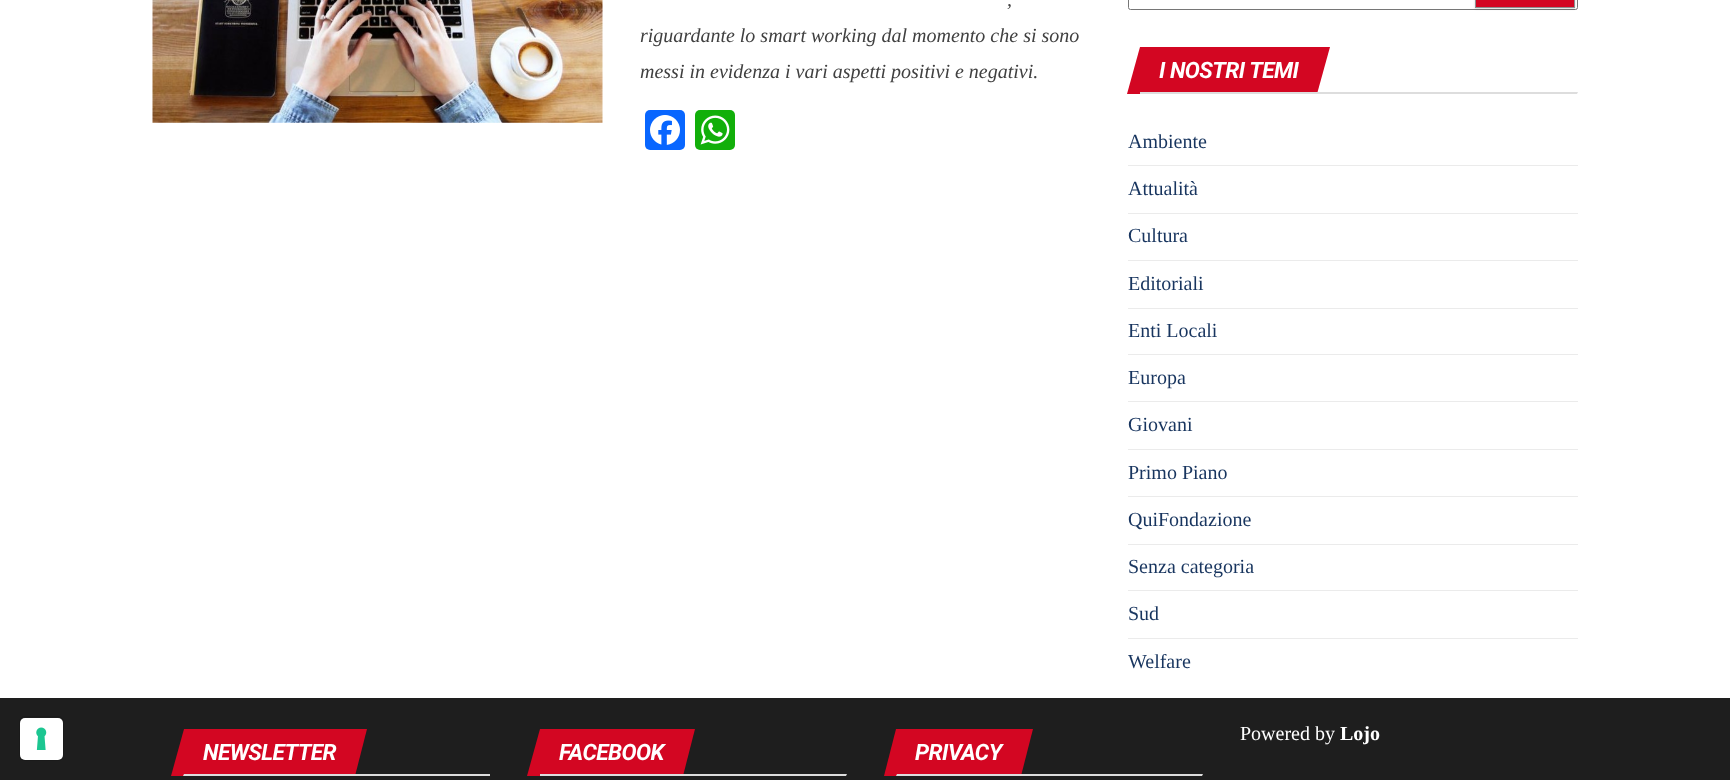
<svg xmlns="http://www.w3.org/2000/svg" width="1730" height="780">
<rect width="100%" height="100%" fill="#fff"/>
<image x="152" y="0" width="451" height="123" href="media/1.png"/>
<text x="1007" y="6" style="font-family:Liberation Serif;font-size:20px;font-style:italic;fill:#404040">,</text>
<text x="640" y="42" style="font-family:Liberation Serif;font-size:20px;font-style:italic;fill:#404040">riguardante lo smart working dal momento che si sono</text>
<text x="640" y="78" style="font-family:Liberation Serif;font-size:20px;font-style:italic;fill:#404040">messi in evidenza i vari aspetti positivi e negativi.</text>
<rect x="645" y="110" width="40" height="40" rx="5" fill="#0866ff"/>
<image x="650" y="115" width="30" height="30" href="media/2.png"/>
<rect x="695" y="110" width="40" height="40" rx="5" fill="#12af0a"/>
<image x="700" y="115" width="30" height="30" href="media/3.png"/>
<rect x="1128.5" y="-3.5" width="449" height="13" rx="2" fill="none" stroke="#767676"/>
<rect x="1475" y="-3" width="100" height="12" fill="#00000026" filter="blur(1px)"/>
<rect x="1475.5" y="-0.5" width="99" height="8" fill="#d30622" stroke="#8e8e8e"/>
<path d="M1140 47h190l-13 47h-190z" fill="#d30622"/>
<text x="1159" y="78" style="font-family:Roboto;font-size:22.5px;font-weight:bold;font-style:italic;letter-spacing:-0.5px;fill:#fff">I NOSTRI TEMI</text>
<path d="M1140 92h438l-1 2h-437z" fill="#ddd"/>
<rect x="1128" y="165" width="450" height="1" fill="#ebebeb"/>
<text x="1128" y="148" style="font-family:Liberation Serif;font-size:20px;fill:#18355f">Ambiente</text>
<rect x="1128" y="213" width="450" height="1" fill="#ebebeb"/>
<text x="1128" y="195" style="font-family:Liberation Serif;font-size:20px;fill:#18355f">Attualità</text>
<rect x="1128" y="260" width="450" height="1" fill="#ebebeb"/>
<text x="1128" y="242" style="font-family:Liberation Serif;font-size:20px;fill:#18355f">Cultura</text>
<rect x="1128" y="308" width="450" height="1" fill="#ebebeb"/>
<text x="1128" y="290" style="font-family:Liberation Serif;font-size:20px;fill:#18355f">Editoriali</text>
<rect x="1128" y="354" width="450" height="1" fill="#ebebeb"/>
<text x="1128" y="337" style="font-family:Liberation Serif;font-size:20px;fill:#18355f">Enti Locali</text>
<rect x="1128" y="401" width="450" height="1" fill="#ebebeb"/>
<text x="1128" y="384" style="font-family:Liberation Serif;font-size:20px;fill:#18355f">Europa</text>
<rect x="1128" y="449" width="450" height="1" fill="#ebebeb"/>
<text x="1128" y="431" style="font-family:Liberation Serif;font-size:20px;fill:#18355f">Giovani</text>
<rect x="1128" y="496" width="450" height="1" fill="#ebebeb"/>
<text x="1128" y="479" style="font-family:Liberation Serif;font-size:20px;fill:#18355f">Primo Piano</text>
<rect x="1128" y="544" width="450" height="1" fill="#ebebeb"/>
<text x="1128" y="526" style="font-family:Liberation Serif;font-size:20px;fill:#18355f">QuiFondazione</text>
<rect x="1128" y="590" width="450" height="1" fill="#ebebeb"/>
<text x="1128" y="573" style="font-family:Liberation Serif;font-size:20px;fill:#18355f">Senza categoria</text>
<rect x="1128" y="638" width="450" height="1" fill="#ebebeb"/>
<text x="1128" y="620" style="font-family:Liberation Serif;font-size:20px;fill:#18355f">Sud</text>
<text x="1128" y="668" style="font-family:Liberation Serif;font-size:20px;fill:#18355f">Welfare</text>
<rect y="698" width="1730" height="82" fill="#1e1e1e"/>
<rect x="19.5" y="716.5" width="44" height="44" rx="5.5" fill="none" stroke="#1a1a1a"/>
<rect x="20" y="718" width="43" height="42" rx="5" fill="#fff"/>
<image x="36" y="727" width="11" height="23" href="media/4.png"/>
<text x="1240" y="740" style="font-family:Liberation Serif;font-size:20px;fill:#fff">Powered by</text>
<text x="1340" y="740" style="font-family:Liberation Serif;font-size:20px;font-weight:bold;fill:#fff">Lojo</text>
<path d="M184 729h183l-12 47h-184z" fill="#d30622"/>
<text x="203" y="760" style="font-family:Roboto;font-size:22.5px;font-weight:bold;font-style:italic;letter-spacing:-0.5px;fill:#fff">NEWSLETTER</text>
<path d="M184 774h306v2h-307z" fill="#ddd"/>
<path d="M540 729h155l-12 47h-156z" fill="#d30622"/>
<text x="559" y="760" style="font-family:Roboto;font-size:22.5px;font-weight:bold;font-style:italic;letter-spacing:-0.5px;fill:#fff">FACEBOOK</text>
<path d="M540 774h307l-1 2h-306z" fill="#ddd"/>
<path d="M896 729h137l-12 47h-137z" fill="#d30622"/>
<text x="915" y="760" style="font-family:Roboto;font-size:22.5px;font-weight:bold;font-style:italic;letter-spacing:-0.5px;fill:#fff">PRIVACY</text>
<path d="M897 774h306l-1 2h-306z" fill="#ddd"/>
</svg>
